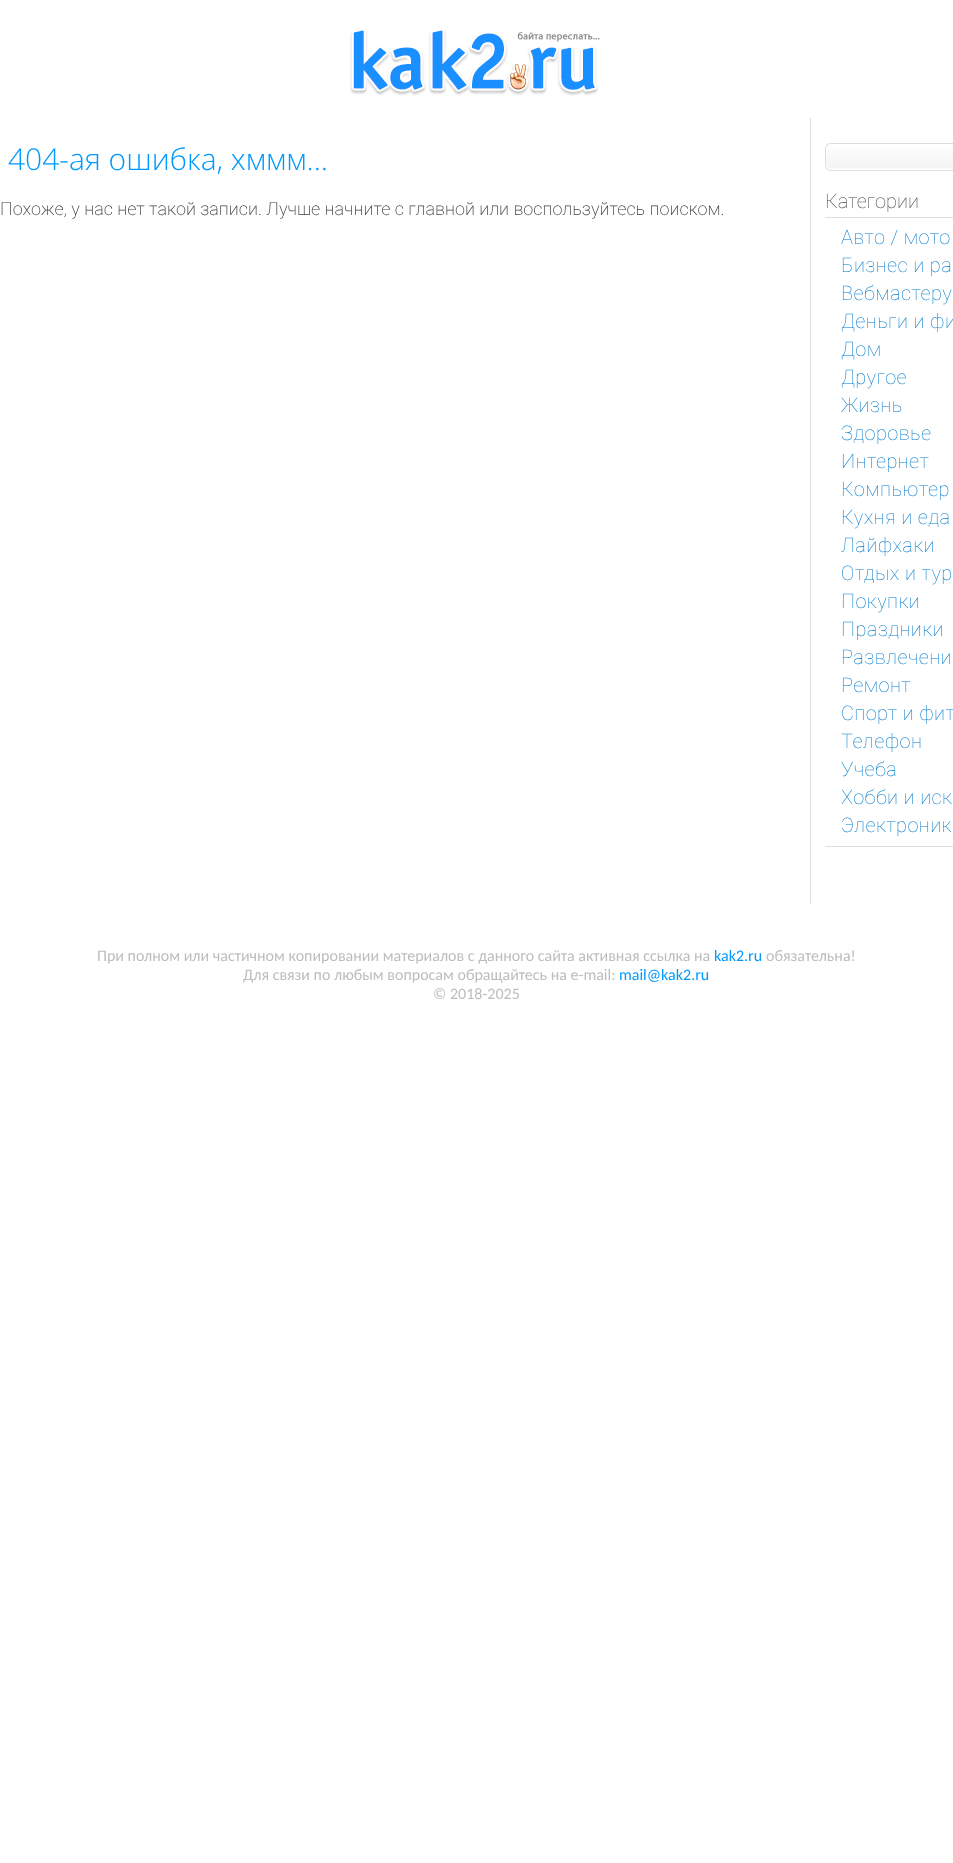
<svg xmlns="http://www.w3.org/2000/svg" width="953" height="1863">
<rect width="100%" height="100%" fill="#fff"/>
<image x="350" y="30" width="250" height="66" href="media/1.png"/>
<text x="8" y="170" style="font-family:Open Sans;font-size:30px;font-weight:300;fill:#09f">404-ая ошибка, хммм...</text>
<text x="0" y="215" style="font-family:Roboto;font-size:18px;font-weight:200;fill:#3f3f3f">Похоже, у нас нет такой записи. Лучше начните с главной или воспользуйтесь поиском.</text>
<rect x="810" y="118" width="1" height="786" fill="#ddd"/>
<image x="825" y="143" width="128" height="28" href="media/2.png"/>
<rect x="825" y="217" width="128" height="1" fill="#ddd"/>
<text x="825" y="208" style="font-family:Roboto;font-size:20px;font-weight:100;fill:#3f3f3f">Категории</text>
<rect x="825" y="846" width="128" height="1" fill="#ddd"/>
<text x="841" y="244" style="font-family:Roboto;font-size:20px;font-weight:100;letter-spacing:0.4px;fill:#007acc">Авто / мото</text>
<text x="841" y="272" style="font-family:Roboto;font-size:20px;font-weight:100;letter-spacing:0.4px;fill:#007acc">Бизнес и ра</text>
<text x="841" y="300" style="font-family:Roboto;font-size:20px;font-weight:100;letter-spacing:0.4px;fill:#007acc">Вебмастеру</text>
<text x="841" y="328" style="font-family:Roboto;font-size:20px;font-weight:100;letter-spacing:0.4px;fill:#007acc">Деньги и фи</text>
<text x="841" y="356" style="font-family:Roboto;font-size:20px;font-weight:100;letter-spacing:0.4px;fill:#007acc">Дом</text>
<text x="841" y="384" style="font-family:Roboto;font-size:20px;font-weight:100;letter-spacing:0.4px;fill:#007acc">Другое</text>
<text x="841" y="412" style="font-family:Roboto;font-size:20px;font-weight:100;letter-spacing:0.4px;fill:#007acc">Жизнь</text>
<text x="841" y="440" style="font-family:Roboto;font-size:20px;font-weight:100;letter-spacing:0.4px;fill:#007acc">Здоровье</text>
<text x="841" y="468" style="font-family:Roboto;font-size:20px;font-weight:100;letter-spacing:0.4px;fill:#007acc">Интернет</text>
<text x="841" y="496" style="font-family:Roboto;font-size:20px;font-weight:100;letter-spacing:0.4px;fill:#007acc">Компьютер</text>
<text x="841" y="524" style="font-family:Roboto;font-size:20px;font-weight:100;letter-spacing:0.4px;fill:#007acc">Кухня и еда</text>
<text x="841" y="552" style="font-family:Roboto;font-size:20px;font-weight:100;letter-spacing:0.4px;fill:#007acc">Лайфхаки</text>
<text x="841" y="580" style="font-family:Roboto;font-size:20px;font-weight:100;letter-spacing:0.4px;fill:#007acc">Отдых и тур</text>
<text x="841" y="608" style="font-family:Roboto;font-size:20px;font-weight:100;letter-spacing:0.4px;fill:#007acc">Покупки</text>
<text x="841" y="636" style="font-family:Roboto;font-size:20px;font-weight:100;letter-spacing:0.4px;fill:#007acc">Праздники</text>
<text x="841" y="664" style="font-family:Roboto;font-size:20px;font-weight:100;letter-spacing:0.4px;fill:#007acc">Развлечени</text>
<text x="841" y="692" style="font-family:Roboto;font-size:20px;font-weight:100;letter-spacing:0.4px;fill:#007acc">Ремонт</text>
<text x="841" y="720" style="font-family:Roboto;font-size:20px;font-weight:100;letter-spacing:0.4px;fill:#007acc">Спорт и фит</text>
<text x="841" y="748" style="font-family:Roboto;font-size:20px;font-weight:100;letter-spacing:0.4px;fill:#007acc">Телефон</text>
<text x="841" y="776" style="font-family:Roboto;font-size:20px;font-weight:100;letter-spacing:0.4px;fill:#007acc">Учеба</text>
<text x="841" y="804" style="font-family:Roboto;font-size:20px;font-weight:100;letter-spacing:0.4px;fill:#007acc">Хобби и иск</text>
<text x="841" y="832" style="font-family:Roboto;font-size:20px;font-weight:100;letter-spacing:0.4px;fill:#007acc">Электроник</text>
<text x="97" y="961" style="font-family:Carlito;font-size:16px;fill:#bdbdbd">При полном или частичном копировании материалов с данного сайта активная ссылка на</text>
<text x="714" y="961" style="font-family:Carlito;font-size:16px;fill:#09f">kak2.ru</text>
<text x="766" y="961" style="font-family:Carlito;font-size:16px;fill:#bdbdbd">обязательна!</text>
<text x="243" y="980" style="font-family:Carlito;font-size:16px;fill:#bdbdbd">Для связи по любым вопросам обращайтесь на e-mail:</text>
<text x="619" y="980" style="font-family:Carlito;font-size:16px;fill:#09f">mail@kak2.ru</text>
<text x="433" y="999" style="font-family:Carlito;font-size:16px;fill:#bdbdbd">© 2018-2025</text>
</svg>
